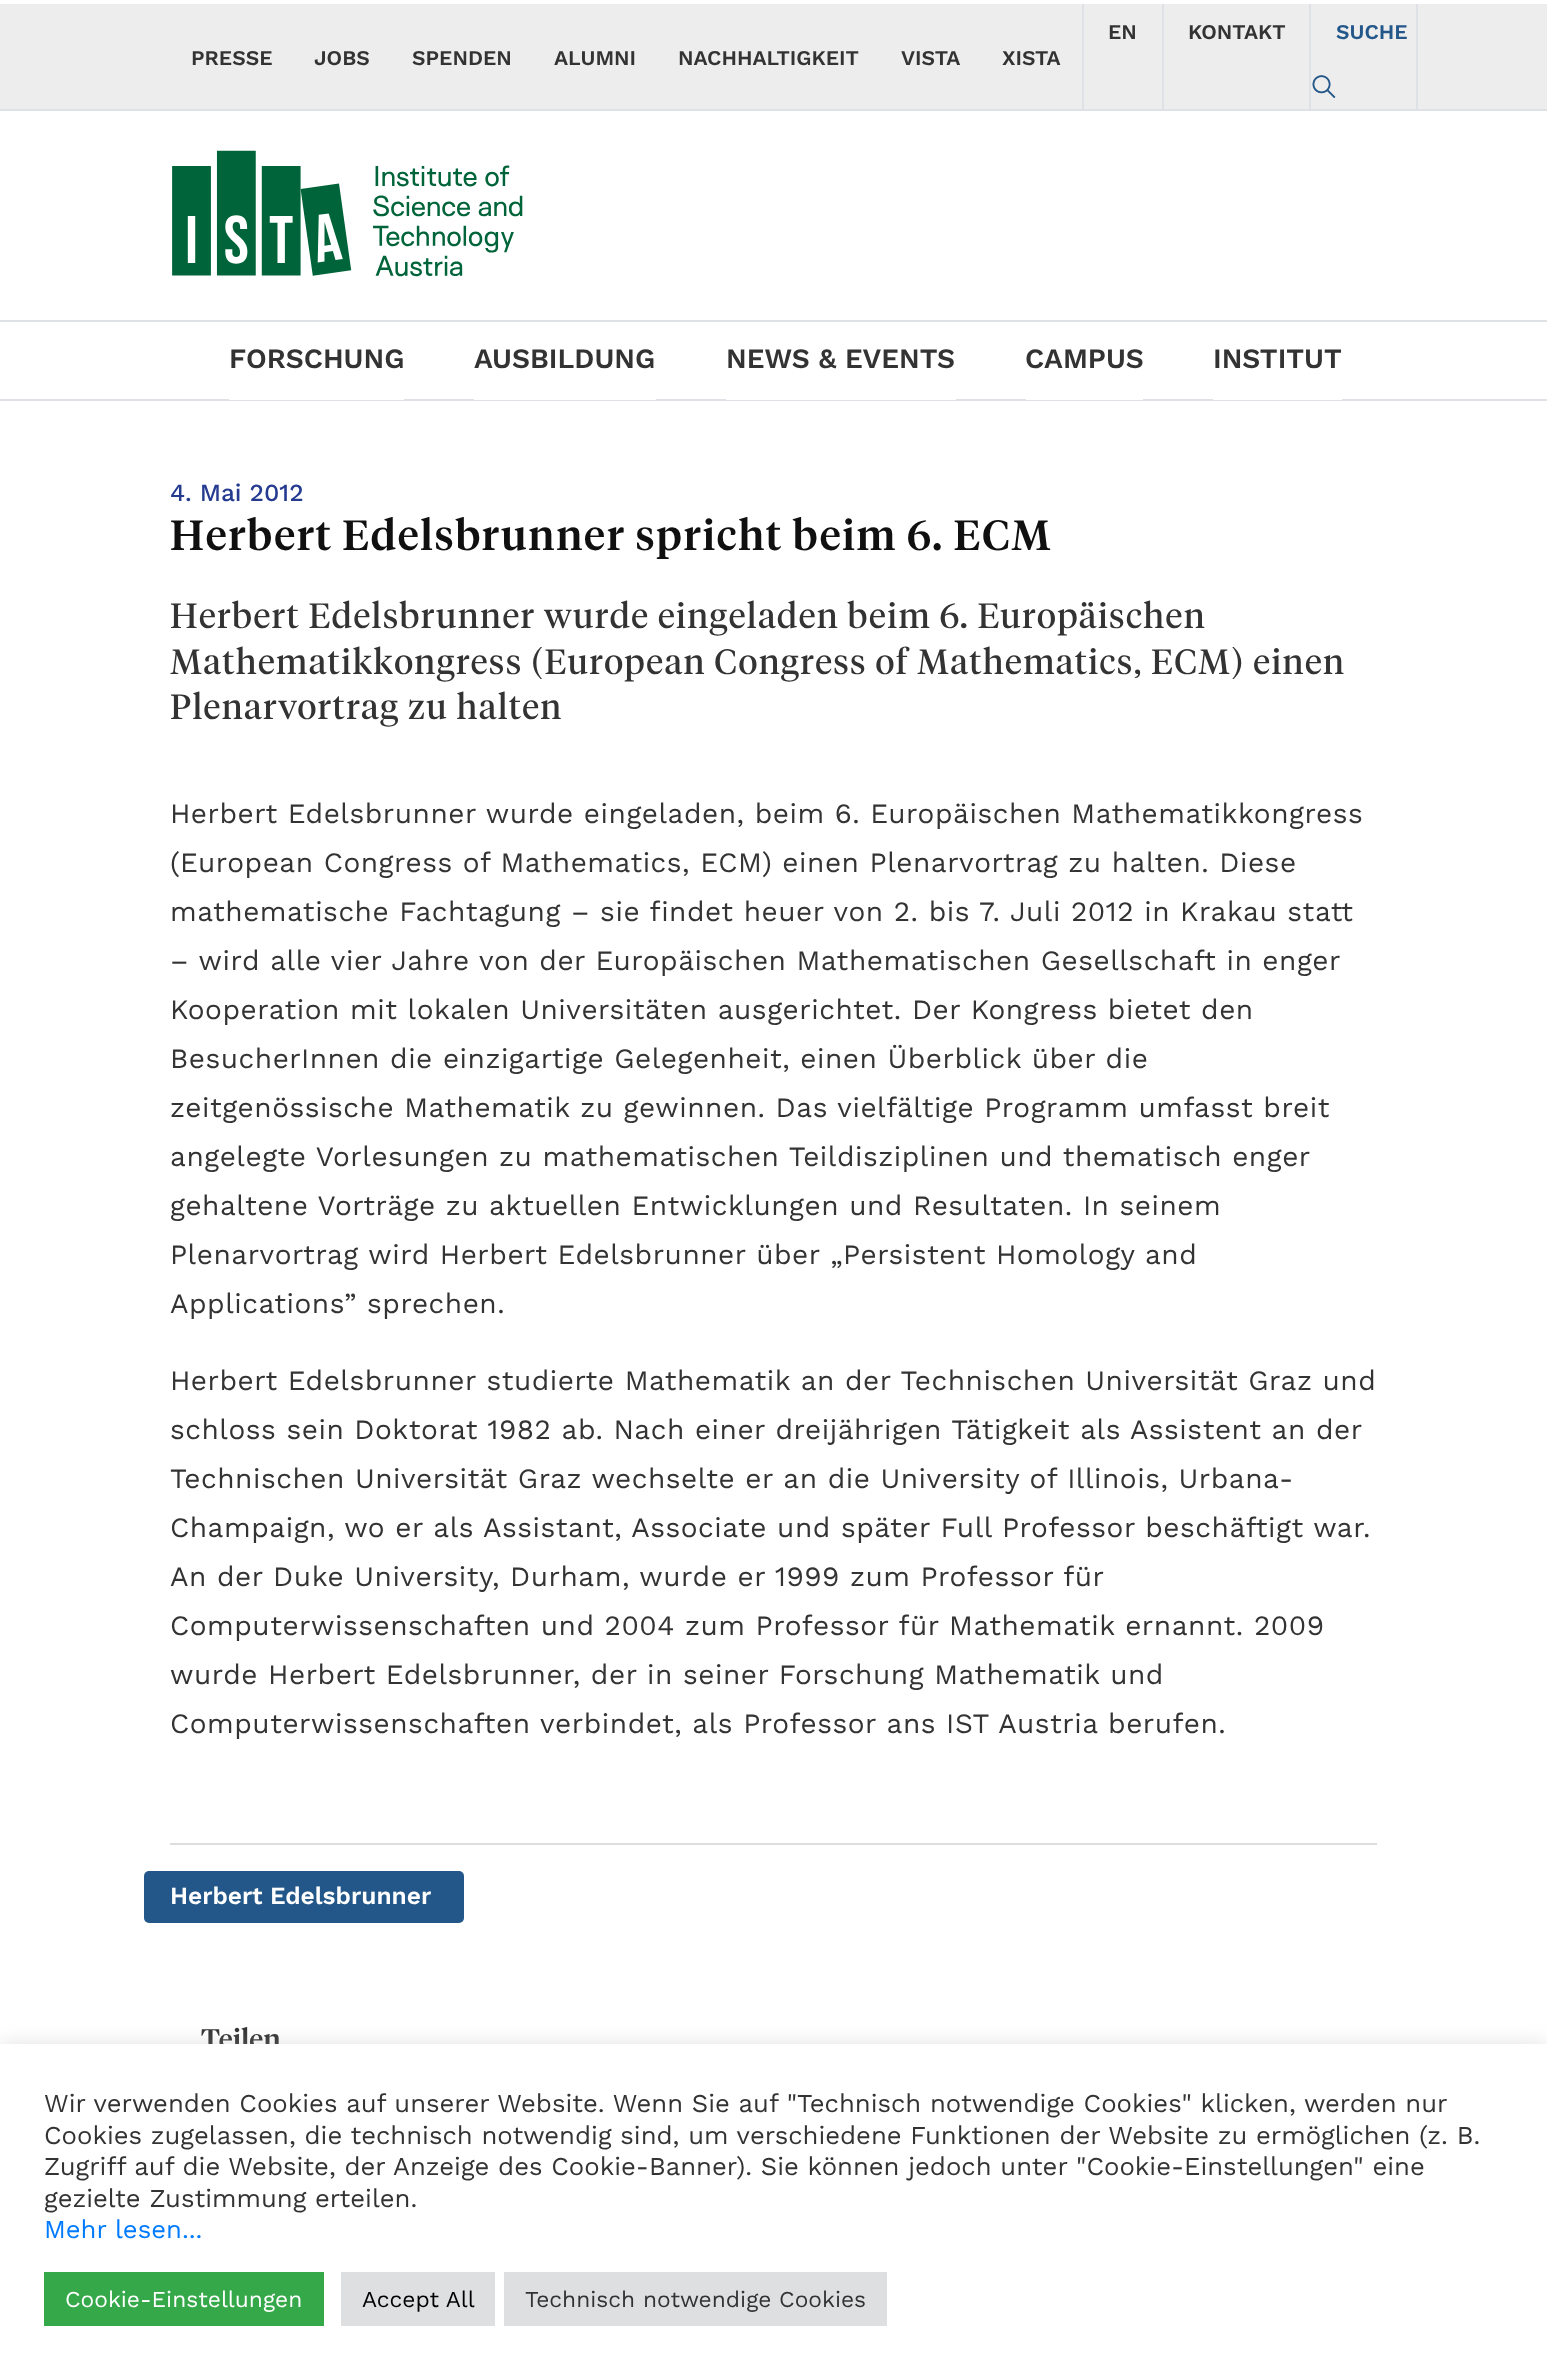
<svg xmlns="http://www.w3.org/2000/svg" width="1547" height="2377">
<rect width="100%" height="100%" fill="#fff"/>
<rect y="4" width="1547" height="105" fill="#ededed"/>
<rect y="109" width="1547" height="2" fill="#dee2e6"/>
<rect x="1082" y="4" width="2" height="105" fill="#dee2e6"/>
<text x="1108" y="39" style="font-family:Work Sans;font-size:21px;font-weight:600;fill:#333">EN</text>
<rect x="1309" y="4" width="2" height="105" fill="#dee2e6"/>
<rect x="1162" y="4" width="2" height="105" fill="#dee2e6"/>
<text x="1188" y="39" style="font-family:Work Sans;font-size:21px;font-weight:600;fill:#333">KONTAKT</text>
<rect x="1416" y="4" width="2" height="105" fill="#dee2e6"/>
<text x="1336" y="39" style="font-family:Work Sans;font-size:21px;font-weight:600;fill:#235789">SUCHE</text>
<image x="1312" y="75" width="24" height="24" href="media/1.png"/>
<text x="191" y="65" style="font-family:Work Sans;font-size:21px;font-weight:600;fill:#333">PRESSE</text>
<text x="314" y="65" style="font-family:Work Sans;font-size:21px;font-weight:600;fill:#333">JOBS</text>
<text x="412" y="65" style="font-family:Work Sans;font-size:21px;font-weight:600;fill:#333">SPENDEN</text>
<text x="554" y="65" style="font-family:Work Sans;font-size:21px;font-weight:600;fill:#333">ALUMNI</text>
<text x="678" y="65" style="font-family:Work Sans;font-size:21px;font-weight:600;fill:#333">NACHHALTIGKEIT</text>
<text x="901" y="65" style="font-family:Work Sans;font-size:21px;font-weight:600;fill:#333">VISTA</text>
<text x="1002" y="65" style="font-family:Work Sans;font-size:21px;font-weight:600;fill:#333">XISTA</text>
<image x="172" y="150" width="351" height="127" href="media/2.png"/>
<rect y="320" width="1547" height="2" fill="#dee2e6"/>
<rect y="399" width="1547" height="2" fill="#dee2e6"/>
<rect x="229" y="399" width="175" height="1" fill="#fff"/>
<text x="229" y="368" style="font-family:Work Sans;font-size:28px;font-weight:600;fill:#333">FORSCHUNG</text>
<rect x="474" y="399" width="182" height="1" fill="#fff"/>
<text x="474" y="368" style="font-family:Work Sans;font-size:28px;font-weight:600;fill:#333">AUSBILDUNG</text>
<rect x="726" y="399" width="230" height="1" fill="#fff"/>
<text x="726" y="368" style="font-family:Work Sans;font-size:28px;font-weight:600;fill:#333">NEWS &amp; EVENTS</text>
<rect x="1026" y="399" width="117" height="1" fill="#fff"/>
<text x="1025" y="368" style="font-family:Work Sans;font-size:28px;font-weight:600;fill:#333">CAMPUS</text>
<rect x="1213" y="399" width="129" height="1" fill="#fff"/>
<text x="1213" y="368" style="font-family:Work Sans;font-size:28px;font-weight:600;fill:#333">INSTITUT</text>
<text x="170" y="501" style="font-family:Work Sans;font-size:24.5px;font-weight:500;fill:#253b90">4. Mai 2012</text>
<text x="170" y="550" style="font-family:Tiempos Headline;font-size:42px;font-weight:500;letter-spacing:1.75px;fill:#101010">Herbert Edelsbrunner spricht beim 6. ECM</text>
<text x="170" y="628" style="font-family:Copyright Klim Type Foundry;font-size:35px;letter-spacing:1.4px;fill:#333">Herbert Edelsbrunner wurde eingeladen beim 6. Europäischen</text>
<text x="170" y="674" style="font-family:Copyright Klim Type Foundry;font-size:35px;letter-spacing:1.4px;fill:#333">Mathematikkongress (European Congress of Mathematics, ECM) einen</text>
<text x="170" y="719" style="font-family:Copyright Klim Type Foundry;font-size:35px;letter-spacing:1.4px;fill:#333">Plenarvortrag zu halten</text>
<text x="170" y="823" style="font-family:Work Sans;font-size:28px;letter-spacing:0.53px;fill:#333">Herbert Edelsbrunner wurde eingeladen, beim 6. Europäischen Mathematikkongress</text>
<text x="170" y="872" style="font-family:Work Sans;font-size:28px;letter-spacing:0.53px;fill:#333">(European Congress of Mathematics, ECM) einen Plenarvortrag zu halten. Diese</text>
<text x="170" y="921" style="font-family:Work Sans;font-size:28px;letter-spacing:0.53px;fill:#333">mathematische Fachtagung – sie findet heuer von 2. bis 7. Juli 2012 in Krakau statt</text>
<text x="170" y="970" style="font-family:Work Sans;font-size:28px;letter-spacing:0.53px;fill:#333">– wird alle vier Jahre von der Europäischen Mathematischen Gesellschaft in enger</text>
<text x="170" y="1019" style="font-family:Work Sans;font-size:28px;letter-spacing:0.53px;fill:#333">Kooperation mit lokalen Universitäten ausgerichtet. Der Kongress bietet den</text>
<text x="170" y="1068" style="font-family:Work Sans;font-size:28px;letter-spacing:0.53px;fill:#333">BesucherInnen die einzigartige Gelegenheit, einen Überblick über die</text>
<text x="170" y="1117" style="font-family:Work Sans;font-size:28px;letter-spacing:0.53px;fill:#333">zeitgenössische Mathematik zu gewinnen. Das vielfältige Programm umfasst breit</text>
<text x="170" y="1166" style="font-family:Work Sans;font-size:28px;letter-spacing:0.53px;fill:#333">angelegte Vorlesungen zu mathematischen Teildisziplinen und thematisch enger</text>
<text x="170" y="1215" style="font-family:Work Sans;font-size:28px;letter-spacing:0.53px;fill:#333">gehaltene Vorträge zu aktuellen Entwicklungen und Resultaten. In seinem</text>
<text x="170" y="1264" style="font-family:Work Sans;font-size:28px;letter-spacing:0.53px;fill:#333">Plenarvortrag wird Herbert Edelsbrunner über „Persistent Homology and</text>
<text x="170" y="1313" style="font-family:Work Sans;font-size:28px;letter-spacing:0.53px;fill:#333">Applications” sprechen.</text>
<text x="170" y="1390" style="font-family:Work Sans;font-size:28px;letter-spacing:0.53px;fill:#333">Herbert Edelsbrunner studierte Mathematik an der Technischen Universität Graz und</text>
<text x="170" y="1439" style="font-family:Work Sans;font-size:28px;letter-spacing:0.53px;fill:#333">schloss sein Doktorat 1982 ab. Nach einer dreijährigen Tätigkeit als Assistent an der</text>
<text x="170" y="1488" style="font-family:Work Sans;font-size:28px;letter-spacing:0.53px;fill:#333">Technischen Universität Graz wechselte er an die University of Illinois, Urbana-</text>
<text x="170" y="1537" style="font-family:Work Sans;font-size:28px;letter-spacing:0.53px;fill:#333">Champaign, wo er als Assistant, Associate und später Full Professor beschäftigt war.</text>
<text x="170" y="1586" style="font-family:Work Sans;font-size:28px;letter-spacing:0.53px;fill:#333">An der Duke University, Durham, wurde er 1999 zum Professor für</text>
<text x="170" y="1635" style="font-family:Work Sans;font-size:28px;letter-spacing:0.53px;fill:#333">Computerwissenschaften und 2004 zum Professor für Mathematik ernannt. 2009</text>
<text x="170" y="1684" style="font-family:Work Sans;font-size:28px;letter-spacing:0.53px;fill:#333">wurde Herbert Edelsbrunner, der in seiner Forschung Mathematik und</text>
<text x="170" y="1733" style="font-family:Work Sans;font-size:28px;letter-spacing:0.53px;fill:#333">Computerwissenschaften verbindet, als Professor ans IST Austria berufen.</text>
<rect x="170" y="1843" width="1207" height="2" fill="#ddd"/>
<rect x="144" y="1871" width="320" height="52" rx="5" fill="#235789"/>
<text x="170" y="1904" style="font-family:Work Sans;font-size:24.5px;font-weight:600;fill:#fff">Herbert Edelsbrunner</text>
<text x="201" y="2049" style="font-family:Tiempos Headline;font-size:28px;font-weight:500;fill:#333">Teilen</text>
<rect y="2042" width="1547" height="335" fill="#acabab4d" filter="blur(9px)"/>
<rect y="2044" width="1547" height="333" fill="#fff"/>
<text x="44" y="2112" style="font-family:Work Sans;font-size:25.67px;fill:#333">Wir verwenden Cookies auf unserer Website. Wenn Sie auf "Technisch notwendige Cookies" klicken, werden nur</text>
<text x="44" y="2144" style="font-family:Work Sans;font-size:25.67px;fill:#333">Cookies zugelassen, die technisch notwendig sind, um verschiedene Funktionen der Website zu ermöglichen (z. B.</text>
<text x="44" y="2175" style="font-family:Work Sans;font-size:25.67px;fill:#333">Zugriff auf die Website, der Anzeige des Cookie-Banner). Sie können jedoch unter "Cookie-Einstellungen" eine</text>
<text x="44" y="2207" style="font-family:Work Sans;font-size:25.67px;fill:#333">gezielte Zustimmung erteilen.</text>
<text x="44" y="2238" style="font-family:Work Sans;font-size:25.67px;fill:#007bff">Mehr lesen...</text>
<rect x="44" y="2272" width="280" height="54" fill="#35a94a"/>
<text x="65" y="2307" style="font-family:Work Sans;font-size:22.75px;fill:#fff">Cookie-Einstellungen</text>
<rect x="341" y="2272" width="154" height="54" fill="#dedfe0"/>
<text x="362" y="2307" style="font-family:Work Sans;font-size:22.75px;fill:#000">Accept All</text>
<rect x="504" y="2272" width="383" height="54" fill="#dedfe0"/>
<text x="525" y="2307" style="font-family:Work Sans;font-size:22.75px;fill:#333">Technisch notwendige Cookies</text>
</svg>
